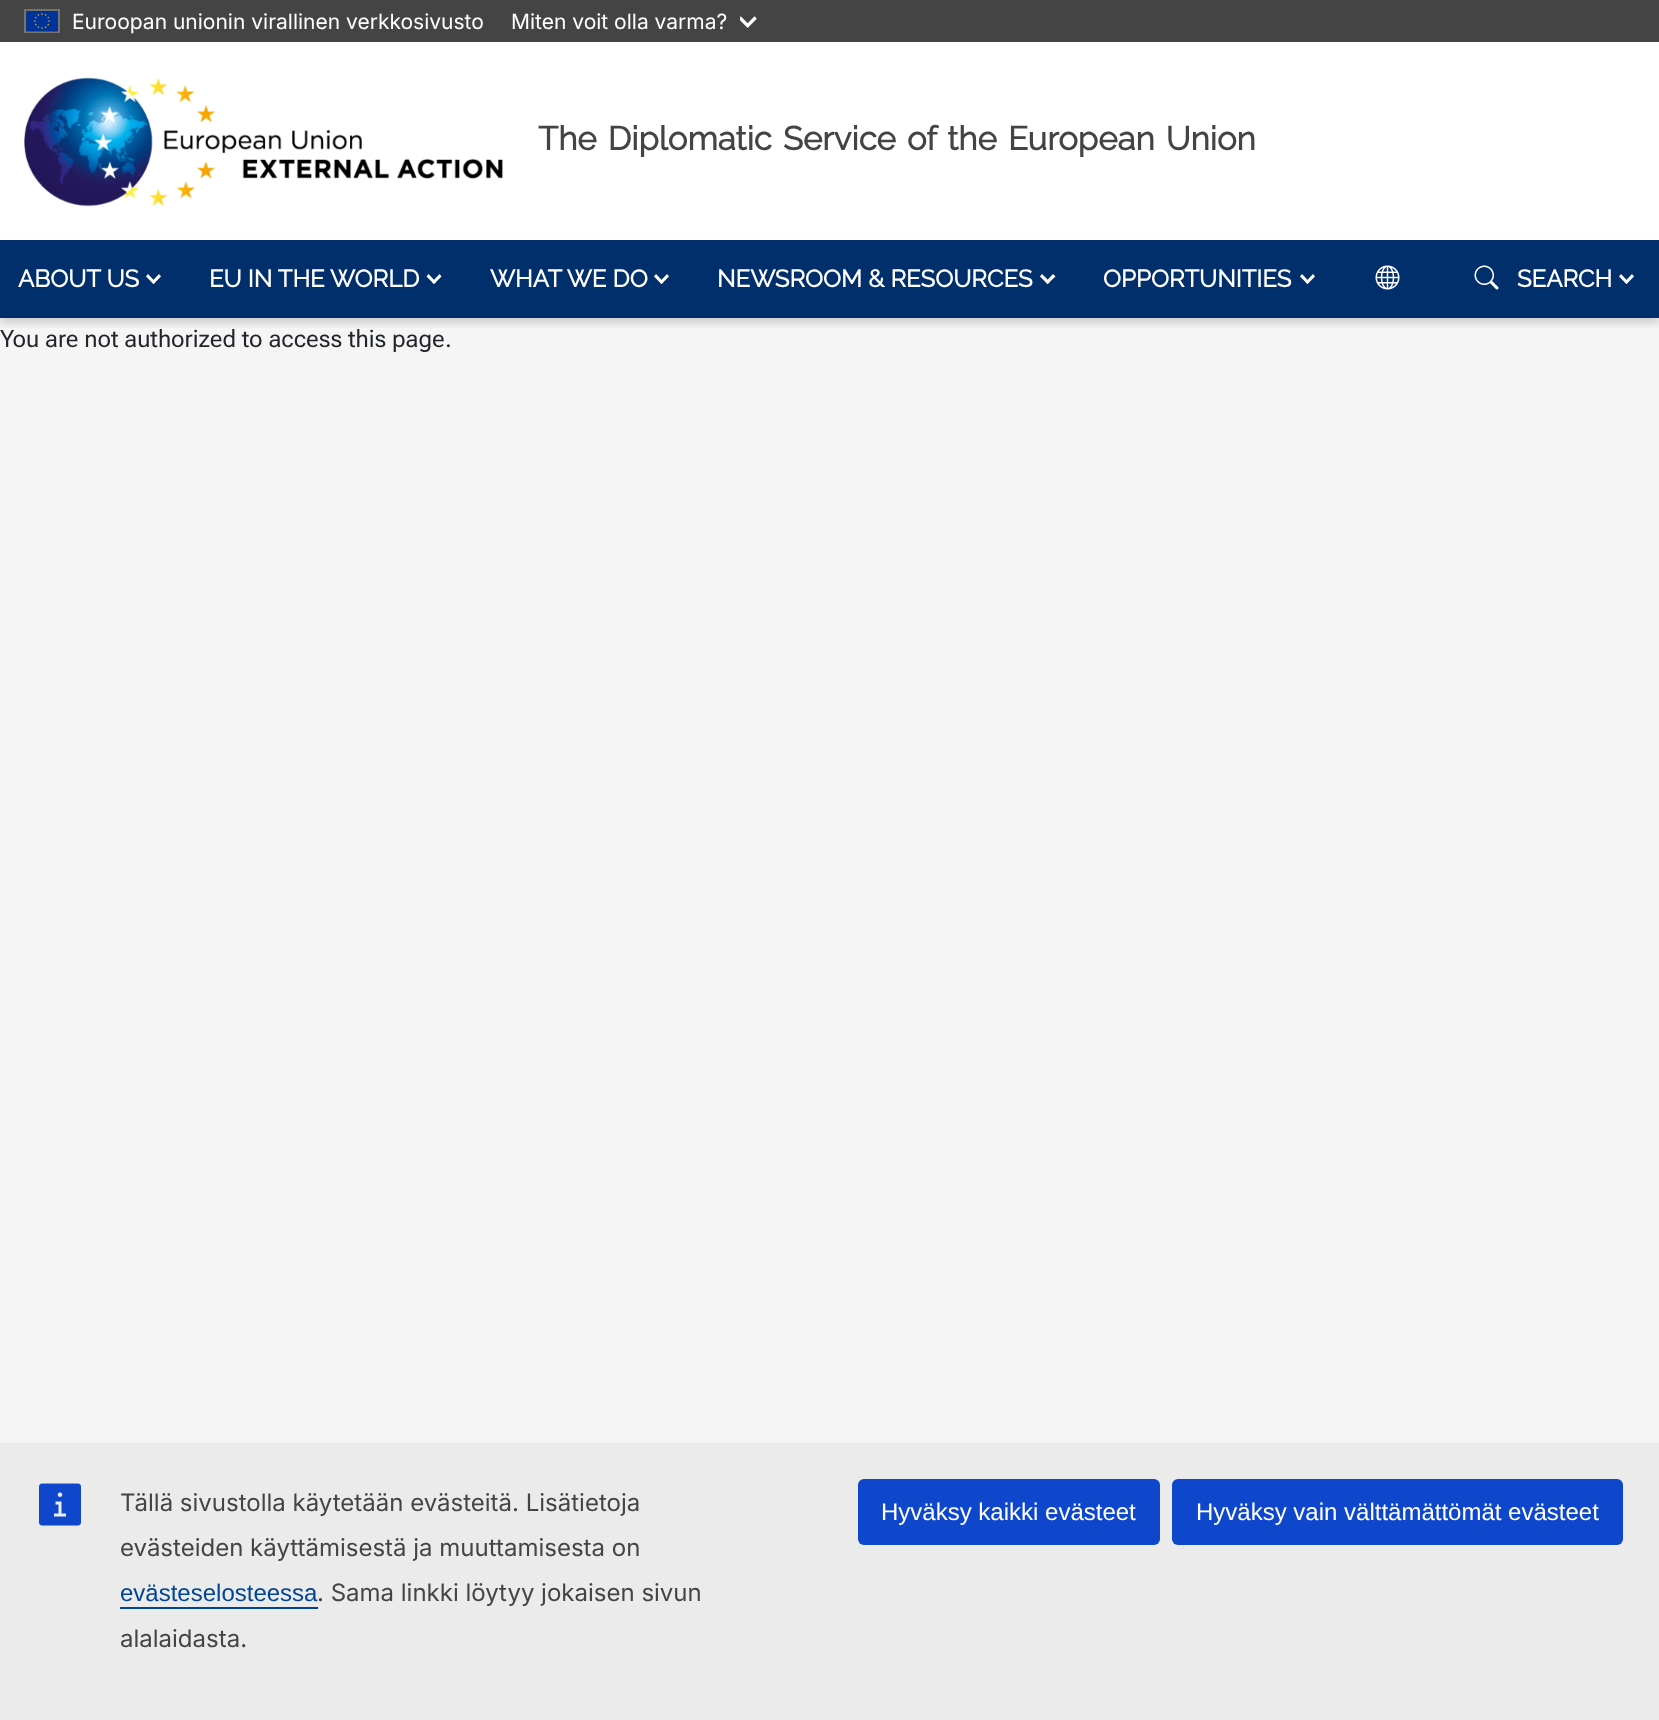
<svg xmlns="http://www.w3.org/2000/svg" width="1659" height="1720">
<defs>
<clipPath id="clip1"><rect x="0" y="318" width="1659" height="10"/></clipPath>
</defs>
<rect width="100%" height="100%" fill="#fff"/>
<rect width="1659" height="42" fill="#444"/>
<rect x="25" y="10" width="34" height="22" fill="none" stroke="#737373" stroke-width="2"/>
<image x="26" y="11" width="32" height="21" href="media/1.png"/>
<text x="72" y="29" style="font-family:Inter;font-size:21px;fill:#fff">Euroopan unionin virallinen verkkosivusto</text>
<text x="511" y="29" style="font-family:Inter;font-size:21px;fill:#fff">Miten voit olla varma?</text>
<image x="740" y="16" width="17" height="12" href="media/2.png"/>
<rect y="318" width="1659" height="1125" fill="#f5f5f5"/>
<g clip-path="url(#clip1)">
<rect y="47" width="1659" height="276" fill="#00000029" filter="blur(4.5px)"/>
</g>
<image x="24" y="77" width="479" height="130" href="media/3.png"/>
<text x="538" y="150" word-spacing="2.5" style="font-family:Raleway;font-size:33px;font-weight:bold;fill:#444">The Diplomatic Service of the European Union</text>
<rect y="240" width="1659" height="78" fill="#002f6c"/>
<text x="18" y="287" style="font-family:Raleway;font-size:24px;font-weight:bold;fill:#fff">ABOUT US</text>
<path d="M151.5 282l7.5-8l2 2.5l-7.5 7.5z" fill="#fff"/>
<path d="M146 276.5l2-2.5l7.5 8l-2 2z" fill="#fff"/>
<text x="209" y="287" style="font-family:Raleway;font-size:24px;font-weight:bold;fill:#fff">EU IN THE WORLD</text>
<path d="M432 282l7.5-8l2 2.5l-7.5 7.5z" fill="#fff"/>
<path d="M426.5 276.5l2-2.5l7.5 8l-2 2z" fill="#fff"/>
<text x="490" y="287" style="font-family:Raleway;font-size:24px;font-weight:bold;fill:#fff">WHAT WE DO</text>
<path d="M659.5 282l7.5-8l2 2.5l-7.5 7.5z" fill="#fff"/>
<path d="M654 276.5l2-2.5l7.5 8l-2 2z" fill="#fff"/>
<text x="717" y="287" style="font-family:Raleway;font-size:24px;font-weight:bold;fill:#fff">NEWSROOM &amp; RESOURCES</text>
<path d="M1045.5 282l7.5-8l2.5 2.5l-8 7.5z" fill="#fff"/>
<path d="M1040 276.5l2-2.5l8 8l-2.5 2z" fill="#fff"/>
<text x="1103" y="287" style="font-family:Raleway;font-size:24px;font-weight:bold;fill:#fff">OPPORTUNITIES</text>
<path d="M1305.5 282l7.5-8l2 2.5l-7.5 7.5z" fill="#fff"/>
<path d="M1300 276.5l2-2.5l7.5 8l-2 2z" fill="#fff"/>
<image x="1375" y="265" width="25" height="25" href="media/4.png"/>
<image x="1474" y="265" width="25" height="25" href="media/5.png"/>
<text x="1517" y="287" style="font-family:Raleway;font-size:24px;font-weight:bold;fill:#fff">SEARCH</text>
<path d="M1624.5 282l7.5-8l2 2.5l-7.5 7.5z" fill="#fff"/>
<path d="M1619 276.5l2-2.5l7.5 8l-2 2z" fill="#fff"/>
<text x="0" y="347" style="font-family:Roboto Flex;font-size:24px;fill:#212529">You are not authorized to access this page.</text>
<rect y="1443" width="1659" height="277" fill="#ebebeb"/>
<image x="39" y="1483" width="42" height="43" href="media/6.png"/>
<text x="120" y="1511" style="font-family:Inter;font-size:24px;fill:#444">Tällä sivustolla käytetään evästeitä. Lisätietoja</text>
<text x="120" y="1556" style="font-family:Inter;font-size:24px;fill:#444">evästeiden käyttämisestä ja muuttamisesta on</text>
<text x="120" y="1601" style="font-family:Liberation Sans;font-size:24px;fill:#004494">evästeselosteessa</text>
<rect x="120" y="1607" width="198" height="2" fill="#004494"/>
<text x="317" y="1601" style="font-family:Inter;font-size:24px;fill:#444">. Sama linkki löytyy jokaisen sivun</text>
<text x="120" y="1647" style="font-family:Inter;font-size:24px;fill:#444">alalaidasta.</text>
<rect x="858" y="1479" width="302" height="66" rx="6" fill="#0e47cb"/>
<text x="881" y="1520" style="font-family:Liberation Sans;font-size:24px;fill:#fff">Hyväksy kaikki evästeet</text>
<rect x="1172" y="1479" width="451" height="66" rx="6" fill="#0e47cb"/>
<text x="1196" y="1520" style="font-family:Liberation Sans;font-size:24px;fill:#fff">Hyväksy vain välttämättömät evästeet</text>
</svg>
